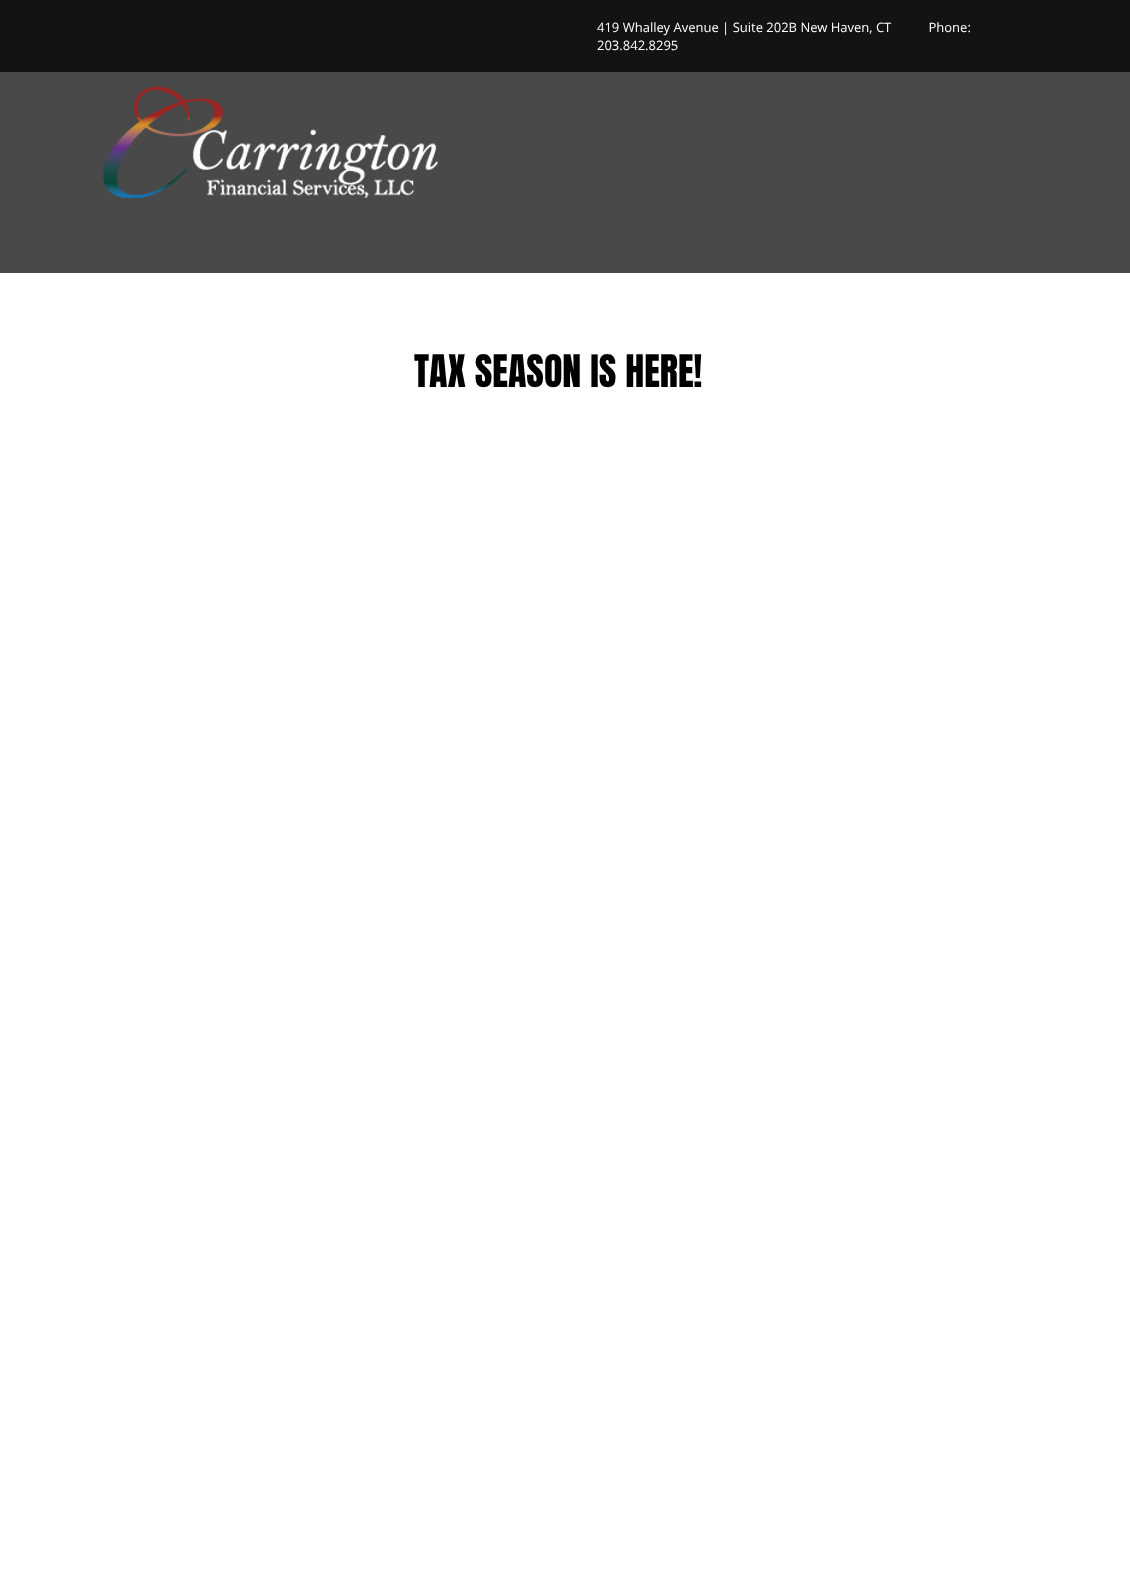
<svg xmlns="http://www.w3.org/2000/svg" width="1130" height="1575">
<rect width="100%" height="100%" fill="#fff"/>
<rect width="1130" height="72" fill="#131313"/>
<text x="597" y="32" style="font-family:Open Sans;font-size:13px;fill:#fff" xml:space="preserve">419 Whalley Avenue | Suite 202B New Haven, CT           Phone:</text>
<text x="597" y="50" style="font-family:Open Sans;font-size:13px;fill:#fff">203.842.8295</text>
<rect y="72" width="1130" height="201" fill="#4a4949"/>
<image x="102" y="86" width="336" height="112" href="media/1.png"/>
<text x="414" y="387" style="font-family:Anton;font-size:38px;fill:#000">TAX SEASON IS HERE!</text>
</svg>
